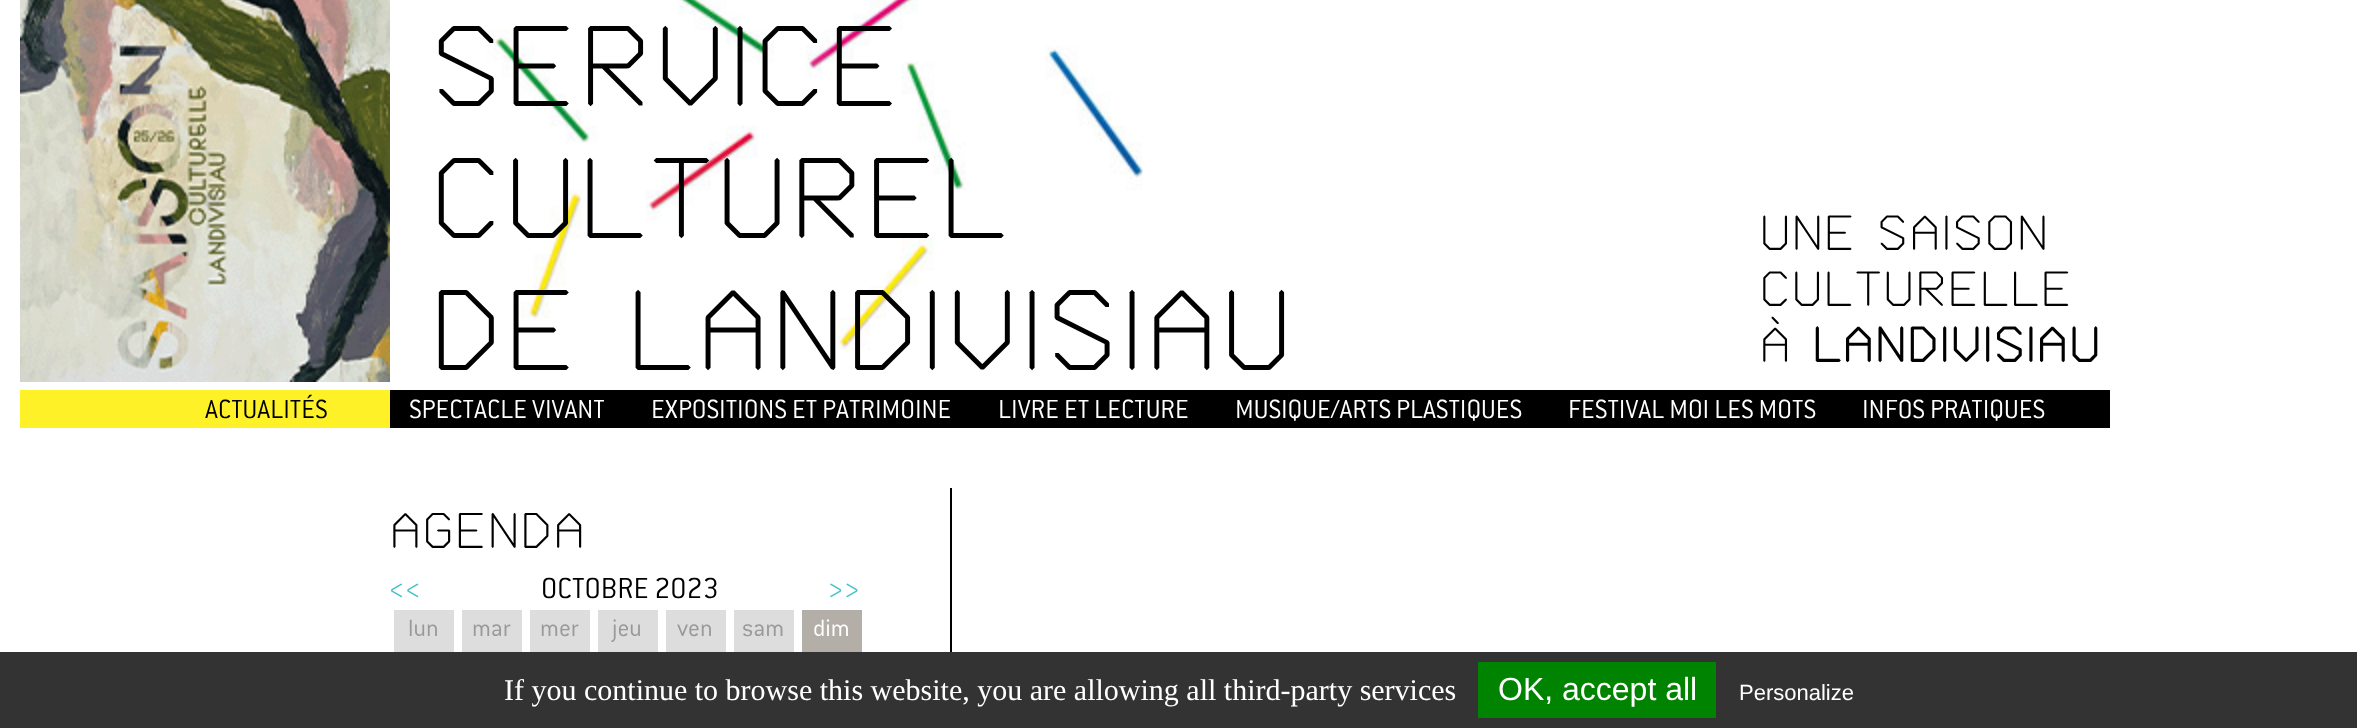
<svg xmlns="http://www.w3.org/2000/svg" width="2357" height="728">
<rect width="100%" height="100%" fill="#fff"/>
<image x="20" y="0" width="370" height="382" href="media/1.png"/>
<image x="486" y="0" width="657" height="351" href="media/2.png"/>
<text x="429" y="106" style="font-family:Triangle;font-size:118.5px;fill:#000">SERVICE</text>
<text x="429" y="238" style="font-family:Triangle;font-size:118.5px;fill:#000">CULTUREL</text>
<text x="429" y="370" style="font-family:Triangle;font-size:118.5px;fill:#000">DE LANDIVISIAU</text>
<text x="1759" y="250" style="font-family:Triangle;font-size:51.25px;fill:#000">UNE SAISON</text>
<text x="1759" y="306" style="font-family:Triangle;font-size:51.25px;fill:#000">CULTURELLE</text>
<text x="1759" y="362" style="font-family:Triangle;font-size:51.25px;fill:#000">À</text>
<text x="1812" y="362" style="font-family:Triangle;font-size:51.25px;font-weight:bold;fill:#000">LANDIVISIAU</text>
<rect x="20" y="390" width="370" height="38" fill="#fef128"/>
<text x="205" y="418" style="font-family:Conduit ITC;font-size:28.75px;font-weight:300;fill:#000">ACTUALITÉS</text>
<rect x="390" y="390" width="1720" height="38" fill="#000"/>
<text x="409" y="418" style="font-family:Conduit ITC;font-size:28.75px;font-weight:300;fill:#fff">SPECTACLE VIVANT</text>
<text x="651" y="418" style="font-family:Conduit ITC;font-size:28.75px;font-weight:300;fill:#fff">EXPOSITIONS ET PATRIMOINE</text>
<text x="998" y="418" style="font-family:Conduit ITC;font-size:28.75px;font-weight:300;fill:#fff">LIVRE ET LECTURE</text>
<text x="1235" y="418" style="font-family:Conduit ITC;font-size:28.75px;font-weight:300;fill:#fff">MUSIQUE/ARTS PLASTIQUES</text>
<text x="1568" y="418" style="font-family:Conduit ITC;font-size:28.75px;font-weight:300;fill:#fff">FESTIVAL MOI LES MOTS</text>
<text x="1862" y="418" style="font-family:Conduit ITC;font-size:28.75px;font-weight:300;fill:#fff">INFOS PRATIQUES</text>
<rect x="950" y="488" width="2" height="164" fill="#000"/>
<text x="389" y="548" style="font-family:Triangle;font-size:52px;fill:#000">AGENDA</text>
<text x="389" y="598" style="font-family:Conduit ITC;font-size:31.75px;font-weight:300;fill:#45c2ca">&lt;&lt;</text>
<text x="541" y="598" style="font-family:Conduit ITC;font-size:31.75px;font-weight:300;fill:#000">OCTOBRE 2023</text>
<text x="827" y="598" style="font-family:Conduit ITC;font-size:31.75px;font-weight:300;fill:#45c2ca">&gt;&gt;</text>
<rect x="394" y="610" width="60" height="42" fill="#ddd"/>
<text x="408" y="636" style="font-family:Conduit ITC;font-size:26px;font-weight:300;fill:#999">lun</text>
<rect x="462" y="610" width="60" height="42" fill="#ddd"/>
<text x="472" y="636" style="font-family:Conduit ITC;font-size:26px;font-weight:300;fill:#999">mar</text>
<rect x="530" y="610" width="60" height="42" fill="#ddd"/>
<text x="540" y="636" style="font-family:Conduit ITC;font-size:26px;font-weight:300;fill:#999">mer</text>
<rect x="598" y="610" width="60" height="42" fill="#ddd"/>
<text x="612" y="636" style="font-family:Conduit ITC;font-size:26px;font-weight:300;fill:#999">jeu</text>
<rect x="666" y="610" width="60" height="42" fill="#ddd"/>
<text x="677" y="636" style="font-family:Conduit ITC;font-size:26px;font-weight:300;fill:#999">ven</text>
<rect x="734" y="610" width="60" height="42" fill="#ddd"/>
<text x="742" y="636" style="font-family:Conduit ITC;font-size:26px;font-weight:300;fill:#999">sam</text>
<rect x="802" y="610" width="60" height="42" fill="#b4aea8"/>
<text x="813" y="636" style="font-family:Conduit ITC;font-size:26px;font-weight:300;fill:#fff">dim</text>
<rect y="652" width="2357" height="76" fill="#333"/>
<text x="504" y="700" style="font-family:Liberation Serif;font-size:30px;fill:#fff">If you continue to browse this website, you are allowing all third-party services</text>
<rect x="1478" y="662" width="238" height="56" fill="#008300"/>
<text x="1498" y="700" style="font-family:Liberation Sans;font-size:32px;fill:#fff">OK, accept all</text>
<text x="1739" y="700" style="font-family:Liberation Sans;font-size:22px;fill:#fff">Personalize</text>
</svg>
